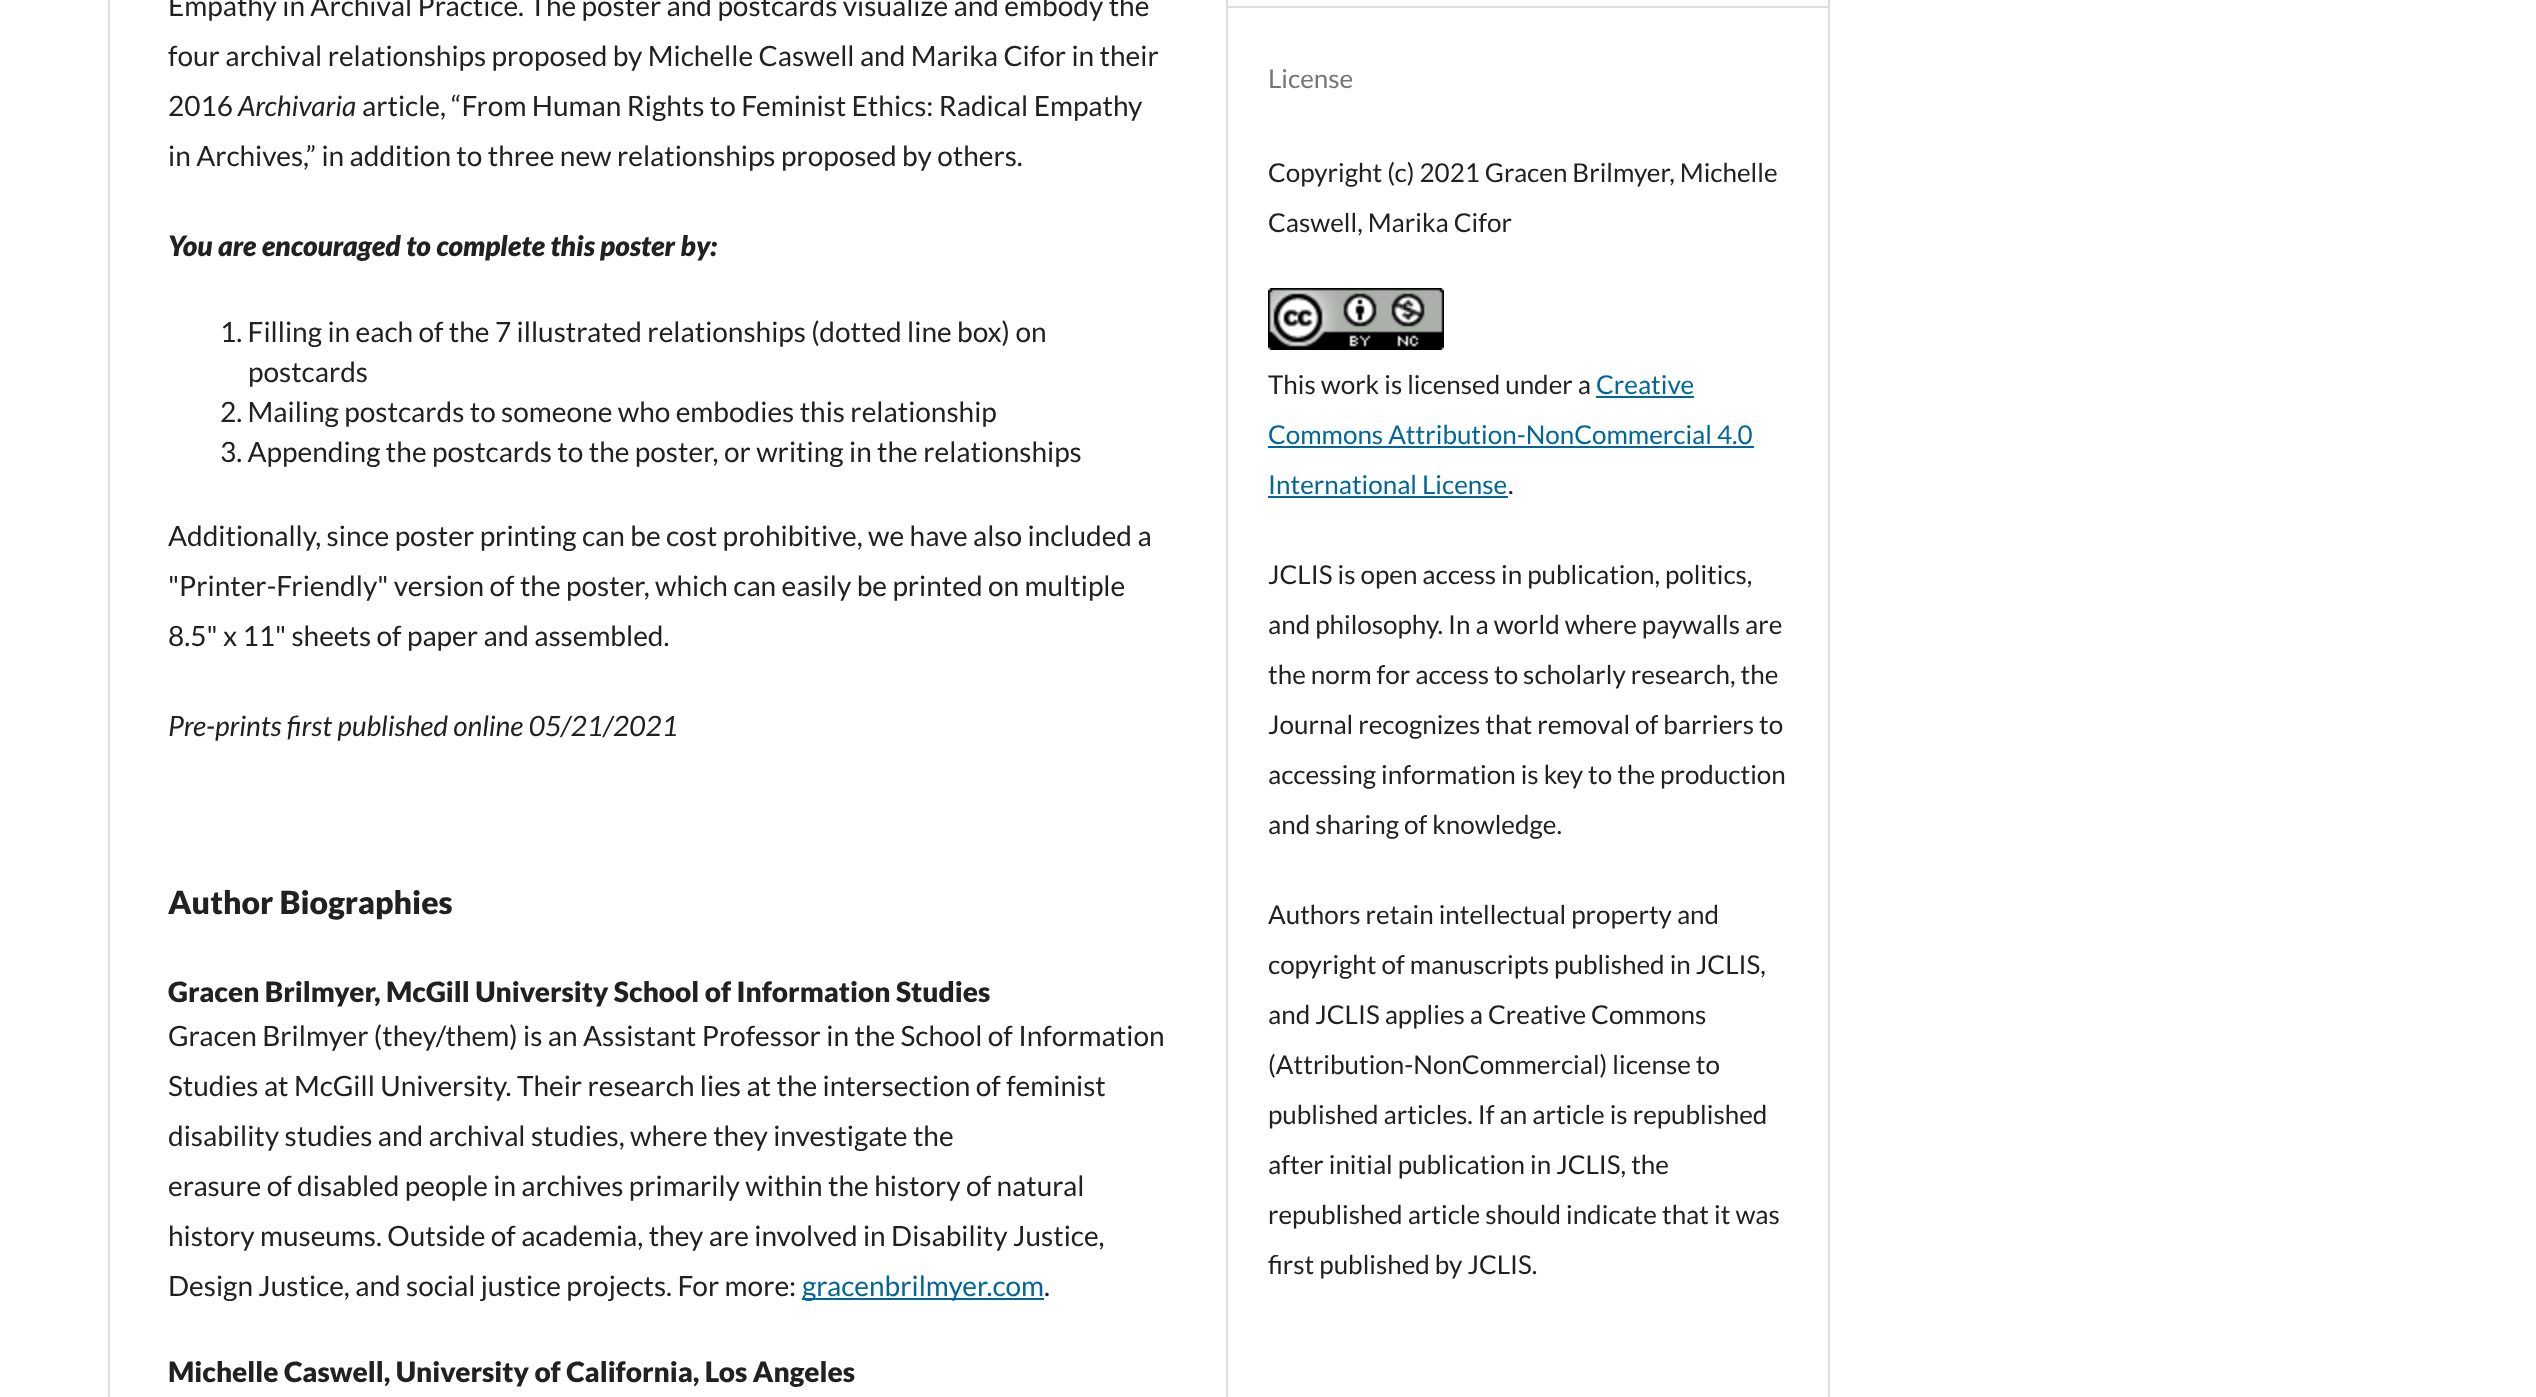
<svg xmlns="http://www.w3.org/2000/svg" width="2536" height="1397">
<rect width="100%" height="100%" fill="#fff"/>
<rect x="108" width="2" height="1397" fill="#ddd"/>
<rect x="1226" width="2" height="1397" fill="#ddd"/>
<text x="168" y="16" style="font-family:Lato;font-size:28px;fill:#212121">Empathy in Archival Practice. The poster and postcards visualize and embody the</text>
<text x="168" y="66" style="font-family:Lato;font-size:28px;fill:#212121">four archival relationships proposed by Michelle Caswell and Marika Cifor in their</text>
<text x="168" y="116" style="font-family:Lato;font-size:28px;fill:#212121">2016</text>
<text x="238" y="116" style="font-family:Lato;font-size:28px;font-style:italic;fill:#212121">Archivaria</text>
<text x="362" y="116" style="font-family:Lato;font-size:28px;fill:#212121">article, “From Human Rights to Feminist Ethics: Radical Empathy</text>
<text x="168" y="166" style="font-family:Lato;font-size:28px;fill:#212121">in Archives,” in addition to three new relationships proposed by others.</text>
<text x="168" y="256" style="font-family:Lato;font-size:28px;font-weight:900;font-style:italic;fill:#212121">You are encouraged to complete this poster by:</text>
<text x="220" y="342" style="font-family:Lato;font-size:28px;fill:#212121">1. Filling in each of the 7 illustrated relationships (dotted line box) on</text>
<text x="248" y="382" style="font-family:Lato;font-size:28px;fill:#212121">postcards</text>
<text x="220" y="422" style="font-family:Lato;font-size:28px;fill:#212121">2. Mailing postcards to someone who embodies this relationship</text>
<text x="220" y="462" style="font-family:Lato;font-size:28px;fill:#212121">3. Appending the postcards to the poster, or writing in the relationships</text>
<text x="168" y="546" style="font-family:Lato;font-size:28px;fill:#212121">Additionally, since poster printing can be cost prohibitive, we have also included a</text>
<text x="168" y="596" style="font-family:Lato;font-size:28px;fill:#212121">"Printer-Friendly" version of the poster, which can easily be printed on multiple</text>
<text x="168" y="646" style="font-family:Lato;font-size:28px;fill:#212121">8.5" x 11" sheets of paper and assembled.</text>
<text x="168" y="736" style="font-family:Lato;font-size:28px;font-style:italic;fill:#212121">Pre-prints first published online 05/21/2021</text>
<text x="168" y="914" style="font-family:Lato;font-size:32px;font-weight:900;fill:#212121">Author Biographies</text>
<text x="168" y="1002" style="font-family:Lato;font-size:28px;font-weight:900;fill:#212121">Gracen Brilmyer, McGill University School of Information Studies</text>
<text x="168" y="1046" style="font-family:Lato;font-size:28px;fill:#212121">Gracen Brilmyer (they/them) is an Assistant Professor in the School of Information</text>
<text x="168" y="1096" style="font-family:Lato;font-size:28px;fill:#212121">Studies at McGill University. Their research lies at the intersection of feminist</text>
<text x="168" y="1146" style="font-family:Lato;font-size:28px;fill:#212121">disability studies and archival studies, where they investigate the</text>
<text x="168" y="1196" style="font-family:Lato;font-size:28px;fill:#212121">erasure of disabled people in archives primarily within the history of natural</text>
<text x="168" y="1246" style="font-family:Lato;font-size:28px;fill:#212121">history museums. Outside of academia, they are involved in Disability Justice,</text>
<text x="168" y="1296" style="font-family:Lato;font-size:28px;fill:#212121">Design Justice, and social justice projects. For more:</text>
<rect x="802" y="1298" width="242" height="2" fill="#006798"/>
<text x="802" y="1296" style="font-family:Lato;font-size:28px;fill:#006798">gracenbrilmyer.com</text>
<text x="1044" y="1296" style="font-family:Lato;font-size:28px;fill:#212121">.</text>
<text x="168" y="1382" style="font-family:Lato;font-size:28px;font-weight:900;fill:#212121">Michelle Caswell, University of California, Los Angeles</text>
<rect x="1228" y="6" width="600" height="2" fill="#ddd"/>
<text x="1268" y="88" style="font-family:Lato;font-size:26px;fill:#757575">License</text>
<text x="1268" y="182" style="font-family:Lato;font-size:26px;fill:#212121">Copyright (c) 2021 Gracen Brilmyer, Michelle</text>
<text x="1268" y="232" style="font-family:Lato;font-size:26px;fill:#212121">Caswell, Marika Cifor</text>
<image x="1268" y="288" width="176" height="62" href="media/1.png"/>
<text x="1268" y="394" style="font-family:Lato;font-size:26px;fill:#212121">This work is licensed under a</text>
<text x="1596" y="394" style="font-family:Lato;font-size:26px;fill:#006798">Creative</text>
<rect x="1596" y="396" width="98" height="2" fill="#006798"/>
<text x="1268" y="444" style="font-family:Lato;font-size:26px;fill:#006798">Commons Attribution-NonCommercial 4.0</text>
<rect x="1268" y="446" width="486" height="2" fill="#006798"/>
<text x="1268" y="494" style="font-family:Lato;font-size:26px;fill:#006798">International License</text>
<rect x="1268" y="496" width="240" height="2" fill="#006798"/>
<text x="1508" y="494" style="font-family:Lato;font-size:26px;fill:#212121">.</text>
<text x="1268" y="584" style="font-family:Lato;font-size:26px;fill:#212121">JCLIS is open access in publication, politics,</text>
<text x="1268" y="634" style="font-family:Lato;font-size:26px;fill:#212121">and philosophy. In a world where paywalls are</text>
<text x="1268" y="684" style="font-family:Lato;font-size:26px;fill:#212121">the norm for access to scholarly research, the</text>
<text x="1268" y="734" style="font-family:Lato;font-size:26px;fill:#212121">Journal recognizes that removal of barriers to</text>
<text x="1268" y="784" style="font-family:Lato;font-size:26px;fill:#212121">accessing information is key to the production</text>
<text x="1268" y="834" style="font-family:Lato;font-size:26px;fill:#212121">and sharing of knowledge.</text>
<text x="1268" y="924" style="font-family:Lato;font-size:26px;fill:#212121">Authors retain intellectual property and</text>
<text x="1268" y="974" style="font-family:Lato;font-size:26px;fill:#212121">copyright of manuscripts published in JCLIS,</text>
<text x="1268" y="1024" style="font-family:Lato;font-size:26px;fill:#212121">and JCLIS applies a Creative Commons</text>
<text x="1268" y="1074" style="font-family:Lato;font-size:26px;fill:#212121">(Attribution-NonCommercial) license to</text>
<text x="1268" y="1124" style="font-family:Lato;font-size:26px;fill:#212121">published articles. If an article is republished</text>
<text x="1268" y="1174" style="font-family:Lato;font-size:26px;fill:#212121">after initial publication in JCLIS, the</text>
<text x="1268" y="1224" style="font-family:Lato;font-size:26px;fill:#212121">republished article should indicate that it was</text>
<text x="1268" y="1274" style="font-family:Lato;font-size:26px;fill:#212121">first published by JCLIS.</text>
<rect x="1828" width="2" height="1397" fill="#ddd"/>
</svg>
